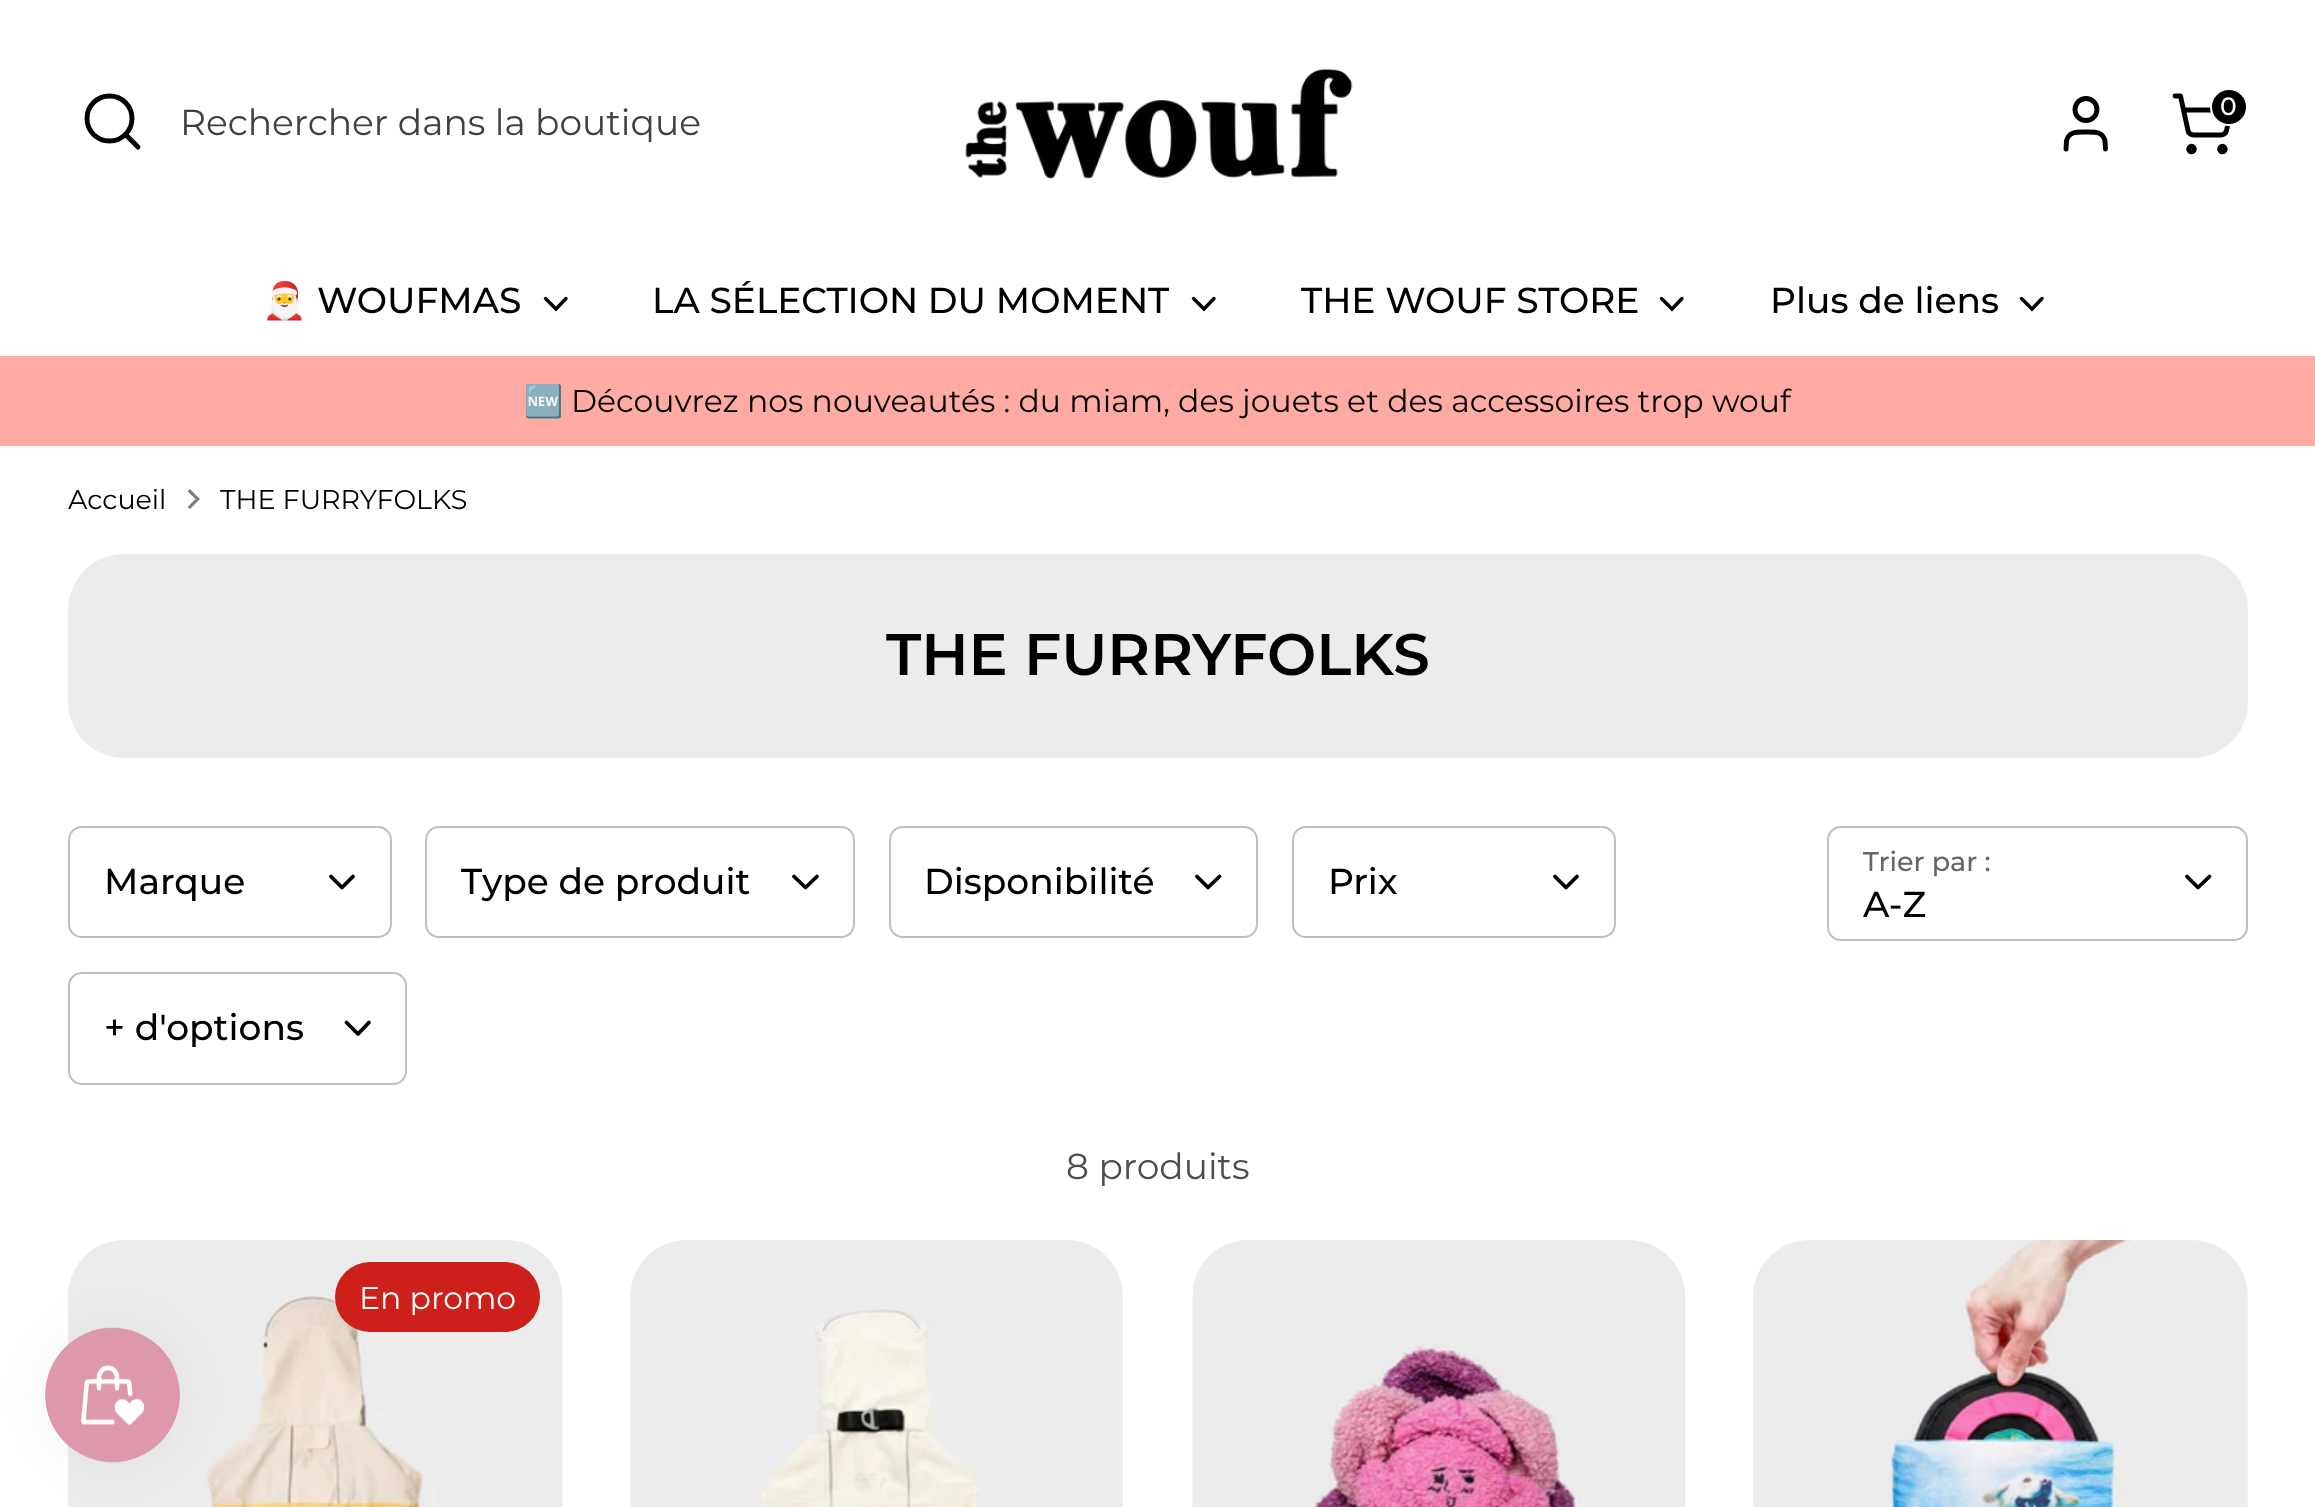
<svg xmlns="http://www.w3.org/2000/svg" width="2315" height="1507">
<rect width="100%" height="100%" fill="#fff"/>
<circle cx="109.5" cy="118.5" r="22.5" fill="none" stroke="#000" stroke-width="4.9"/>
<path d="M138 147l-12.5-12.5" fill="none" stroke="#000" stroke-width="4.9" stroke-linecap="round" stroke-linejoin="round"/>
<text x="180" y="135" style="font-family:Montserrat;font-size:36px;fill:#404040">Rechercher dans la boutique</text>
<image x="965" y="68" width="388" height="111" href="media/1.png"/>
<path d="M2105.5 149l-.5-8c-2-10-11.5-9-19-9c-8 0-17.5-1-19.5 9l-.5 8" fill="none" stroke="#000" stroke-width="4.9" stroke-linecap="round" stroke-linejoin="round"/>
<circle cx="2086" cy="109.5" r="11" fill="none" stroke="#000" stroke-width="4.9"/>
<circle cx="2191.5" cy="149.1" r="2.8" fill="none" stroke="#000" stroke-width="4.9"/>
<circle cx="2222.4" cy="149.1" r="2.8" fill="none" stroke="#000" stroke-width="4.9"/>
<path d="M2175 96h5.5l7.5 34.5c.5 3 3 4.5 5.5 4.5h27.5c2.5 0 5-1.5 5.5-4.5l4.5-20.5h-47.5" fill="none" stroke="#000" stroke-width="4.9" stroke-linecap="round" stroke-linejoin="round"/>
<circle cx="2229" cy="107" r="18" fill="#000" stroke="#fff" stroke-width="2"/>
<text x="2220" y="115" style="font-family:Montserrat;font-size:25px;font-weight:500;fill:#fff">0</text>
<text x="262" y="313" style="font-family:Noto Color Emoji;font-size:36px;fill:#000">🎅</text>
<text x="317" y="313" style="font-family:Montserrat;font-size:36px;font-weight:500;fill:#000">WOUFMAS</text>
<path d="M545.5 298.5l10.5 10.5l10-10.5" fill="none" stroke="#000" stroke-width="3.4" stroke-linecap="round"/>
<text x="652" y="313" style="font-family:Montserrat;font-size:36px;font-weight:500;fill:#000">LA SÉLECTION DU MOMENT</text>
<path d="M1193.5 298.5l10.5 10.5l10-10.5" fill="none" stroke="#000" stroke-width="3.4" stroke-linecap="round"/>
<text x="1301" y="313" style="font-family:Montserrat;font-size:36px;font-weight:500;fill:#000">THE WOUF STORE</text>
<path d="M1661.5 298.5l10.5 10.5l10-10.5" fill="none" stroke="#000" stroke-width="3.4" stroke-linecap="round"/>
<text x="1770" y="313" style="font-family:Montserrat;font-size:36px;font-weight:500;fill:#000">Plus de liens</text>
<path d="M2021.5 298.5l10.5 10.5l10-10.5" fill="none" stroke="#000" stroke-width="3.4" stroke-linecap="round"/>
<rect y="356" width="2315" height="90" fill="#ffaba3"/>
<text x="524" y="412" style="font-family:Noto Color Emoji;font-size:31.5px;fill:#000">🆕</text>
<text x="571" y="412" style="font-family:Montserrat;font-size:31.5px;fill:#000">Découvrez nos nouveautés : du miam, des jouets et des accessoires trop wouf</text>
<text x="68" y="509" style="font-family:Montserrat;font-size:27px;fill:#000">Accueil</text>
<path d="M187.5 507l8-8l-8-7.5l2.5-2.5l10 10l-10 10z" fill="#808080"/>
<text x="220" y="509" style="font-family:Montserrat;font-size:27px;fill:#000">THE FURRYFOLKS</text>
<rect x="68" y="554" width="2180" height="204" rx="56" fill="#ececec"/>
<text x="886" y="675" style="font-family:Montserrat;font-size:58.5px;font-weight:600;fill:#000">THE FURRYFOLKS</text>
<rect x="69" y="827" width="322" height="110" rx="13" fill="none" stroke="#bfbfbf" stroke-width="2"/>
<text x="104" y="894" style="font-family:Montserrat;font-size:36px;font-weight:500;fill:#000">Marque</text>
<path d="M331 876.5l11 11l11-11" fill="none" stroke="#000" stroke-width="3.8" stroke-linecap="round" stroke-linejoin="round"/>
<rect x="426" y="827" width="428" height="110" rx="13" fill="none" stroke="#bfbfbf" stroke-width="2"/>
<text x="461" y="894" style="font-family:Montserrat;font-size:36px;font-weight:500;fill:#000">Type de produit</text>
<path d="M794 876.5l11.5 11l11.5-11" fill="none" stroke="#000" stroke-width="3.8" stroke-linecap="round" stroke-linejoin="round"/>
<rect x="890" y="827" width="367" height="110" rx="13" fill="none" stroke="#bfbfbf" stroke-width="2"/>
<text x="924" y="894" style="font-family:Montserrat;font-size:36px;font-weight:500;fill:#000">Disponibilité</text>
<path d="M1197 876.5l11 11l11.5-11" fill="none" stroke="#000" stroke-width="3.8" stroke-linecap="round" stroke-linejoin="round"/>
<rect x="1293" y="827" width="322" height="110" rx="13" fill="none" stroke="#bfbfbf" stroke-width="2"/>
<text x="1328" y="894" style="font-family:Montserrat;font-size:36px;font-weight:500;fill:#000">Prix</text>
<path d="M1555 876.5l11 11l11-11" fill="none" stroke="#000" stroke-width="3.8" stroke-linecap="round" stroke-linejoin="round"/>
<rect x="69" y="973" width="337" height="111" rx="13" fill="none" stroke="#bfbfbf" stroke-width="2"/>
<text x="104" y="1040" style="font-family:Montserrat;font-size:36px;font-weight:500;fill:#000">+ d'options</text>
<path d="M346.5 1022.5l11.5 11.5l11-11.5" fill="none" stroke="#000" stroke-width="3.8" stroke-linecap="round" stroke-linejoin="round"/>
<rect x="1828" y="827" width="419" height="113" rx="13" fill="none" stroke="#bfbfbf" stroke-width="2"/>
<text x="1863" y="871" style="font-family:Montserrat;font-size:27px;font-weight:500;fill:#666">Trier par :</text>
<path d="M2187 876.5l11 11l11.5-11" fill="none" stroke="#000" stroke-width="3.8" stroke-linecap="round" stroke-linejoin="round"/>
<text x="1863" y="917" style="font-family:Montserrat;font-size:36px;font-weight:500;fill:#000">A-Z</text>
<text x="1066" y="1179" style="font-family:Montserrat;font-size:36px;fill:#4d4d4d">8 produits</text>
<image x="68" y="1240" width="495" height="267" href="media/2.png"/>
<rect x="335" y="1262" width="205" height="70" rx="35" fill="#cd201a"/>
<text x="359" y="1309" style="font-family:Montserrat;font-size:31.5px;fill:#fff">En promo</text>
<image x="630" y="1240" width="493" height="267" href="media/3.png"/>
<image x="1192" y="1240" width="494" height="267" href="media/4.png"/>
<image x="1753" y="1240" width="495" height="267" href="media/5.png"/>
<rect x="45" y="1328" width="135" height="135" rx="67.5" fill="#0000000d" filter="blur(28px)"/>
<image x="45" y="1327" width="135" height="136" href="media/6.png"/>
</svg>
